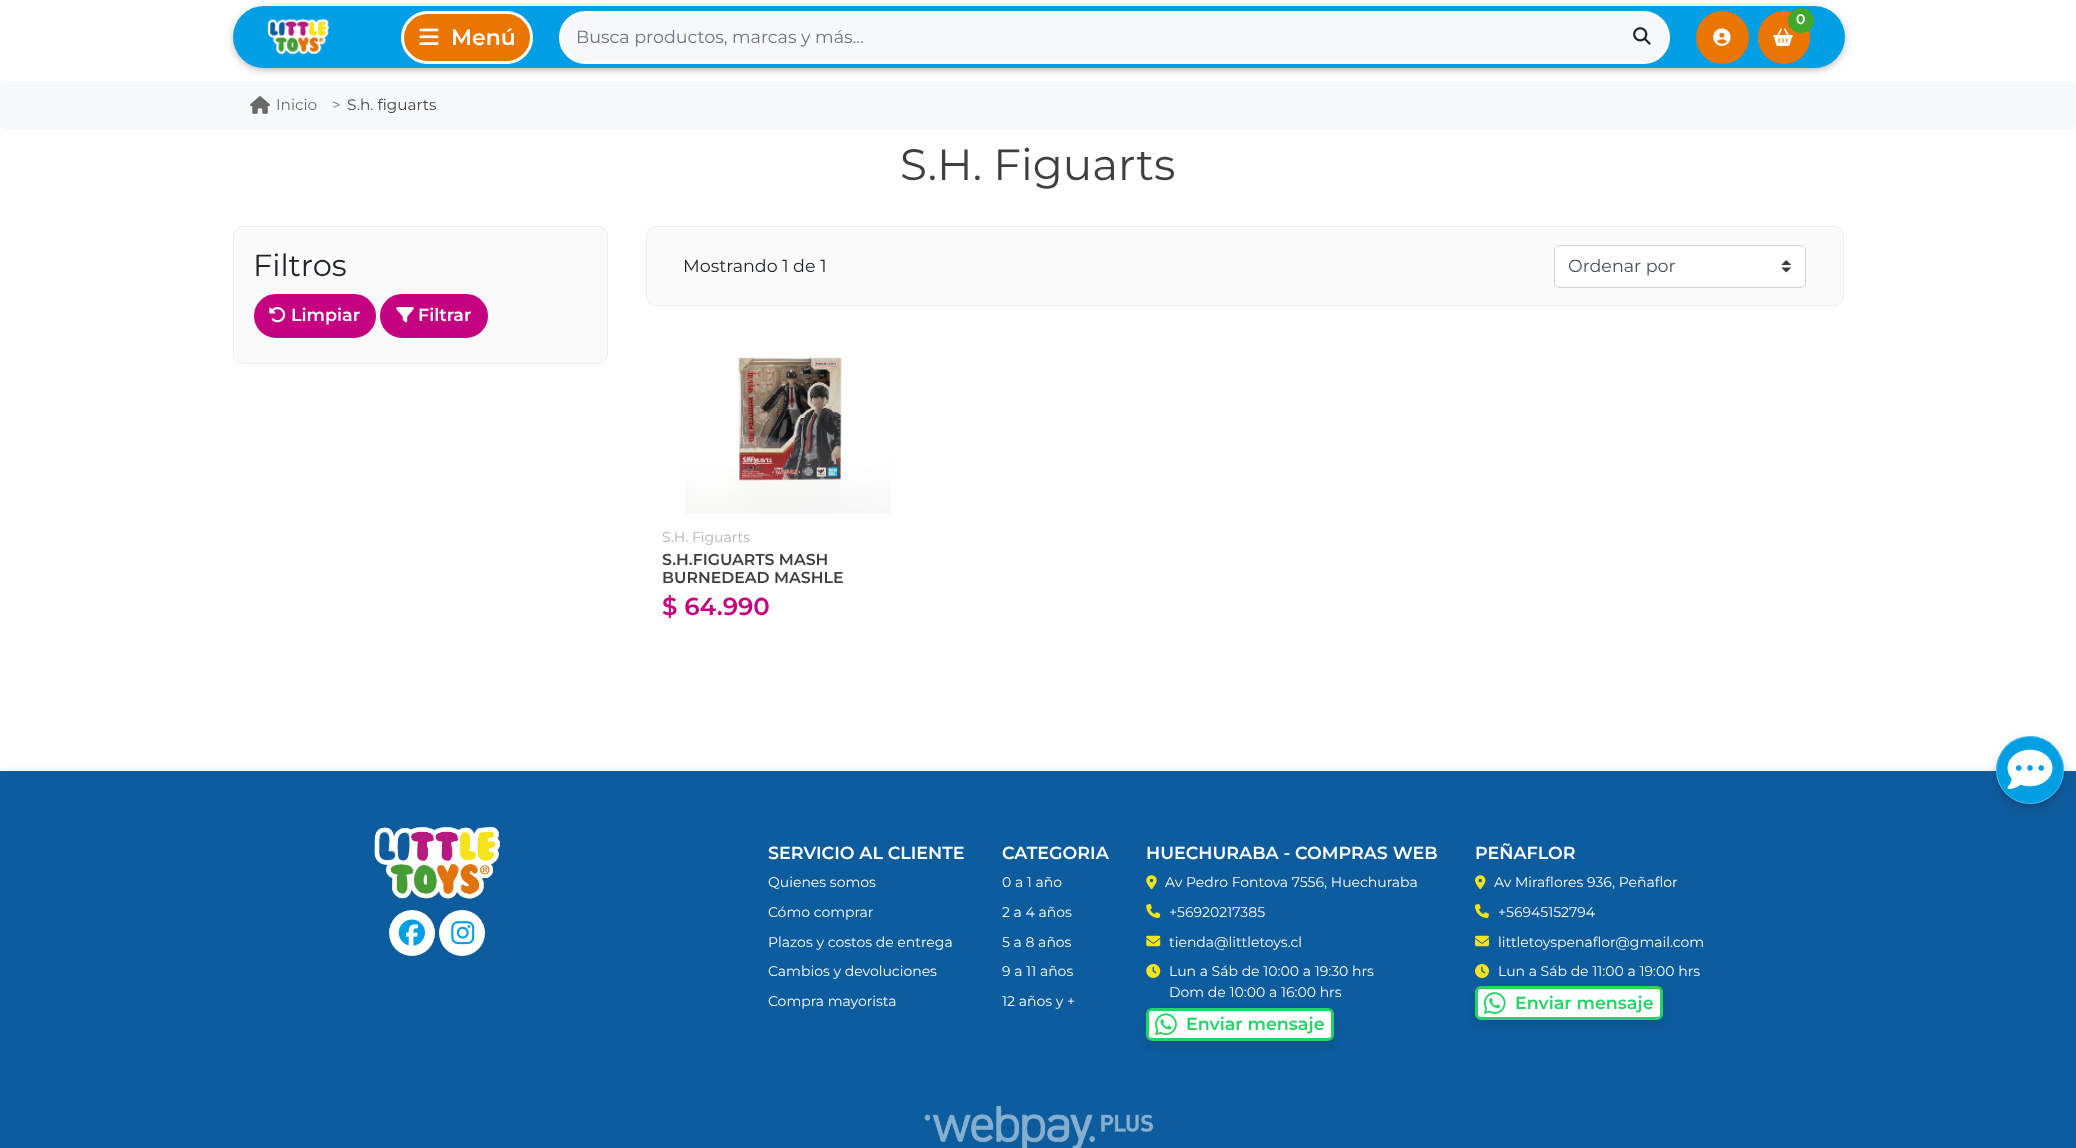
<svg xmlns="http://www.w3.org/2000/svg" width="2076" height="1148">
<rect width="100%" height="100%" fill="#fff"/>
<rect y="81" width="2076" height="49" rx="5" fill="#f6f8f9"/>
<rect x="238" y="14" width="1602" height="51" rx="25.5" fill="#000000bf" filter="blur(6px)"/>
<rect x="233" y="6" width="1612" height="62" rx="31" fill="#009fe3"/>
<image x="267" y="18" width="63" height="36" href="media/1.png"/>
<rect x="402.5" y="12.5" width="129" height="50" rx="25" fill="#ea7500" stroke="#fff" stroke-width="3"/>
<image x="419" y="28" width="20" height="17" href="media/2.png"/>
<text x="451" y="45" style="font-family:Montserrat;font-size:22px;font-weight:600;fill:#fff">Menú</text>
<rect x="560.5" y="12.5" width="1108" height="50" rx="25" fill="#f6f8f9" stroke="#fff" stroke-width="3"/>
<text x="576" y="43" style="font-family:Montserrat;font-size:17.5px;fill:#6c757d">Busca productos, marcas y más...</text>
<image x="1633" y="27" width="18" height="18" href="media/3.png"/>
<circle cx="1722.5" cy="37.5" r="26.5" fill="#ea7500"/>
<image x="1713" y="28" width="18" height="18" href="media/4.png"/>
<rect x="1758" y="11" width="52" height="53" rx="26" fill="#ea7500"/>
<image x="1773" y="28" width="20" height="18" href="media/5.png"/>
<rect x="1788" y="8" width="26" height="25" rx="12.5" fill="#41a82d"/>
<text x="1796" y="24" style="font-family:Montserrat;font-size:14px;font-weight:600;fill:#fff">0</text>
<image x="250" y="96" width="20" height="18" href="media/6.png"/>
<text x="276" y="110" style="font-family:Montserrat;font-size:15.25px;fill:#696969">Inicio</text>
<text x="332" y="110" style="font-family:Montserrat;font-size:15.25px;fill:#6c757d">&gt;</text>
<text x="347" y="110" style="font-family:Montserrat;font-size:15.25px;fill:#454545">S.h. figuarts</text>
<text x="900" y="180" style="font-family:Montserrat;font-size:43.75px;fill:#403f3f">S.H. Figuarts</text>
<rect x="233.5" y="226.5" width="374" height="137" rx="9.5" fill="#fafafa" stroke="#ededed"/>
<text x="253" y="276" style="font-family:Montserrat;font-size:30.5px;fill:#212529">Filtros</text>
<rect x="255.5" y="295.5" width="119" height="41" rx="20.5" fill="#c40080" stroke="#c40080" stroke-width="3"/>
<image x="269" y="307" width="17" height="16" href="media/7.png"/>
<text x="291" y="321" style="font-family:Montserrat;font-size:17.5px;font-weight:600;fill:#fff">Limpiar</text>
<rect x="381.5" y="295.5" width="105" height="41" rx="20.5" fill="#c40080" stroke="#c40080" stroke-width="3"/>
<image x="396" y="307" width="18" height="16" href="media/8.png"/>
<text x="418" y="321" style="font-family:Montserrat;font-size:17.5px;font-weight:600;fill:#fff">Filtrar</text>
<rect x="646.5" y="226.5" width="1197" height="79" rx="9.5" fill="#fafafa" stroke="#ededed"/>
<text x="683" y="272" style="font-family:Montserrat;font-size:17.5px;fill:#212529">Mostrando 1 de 1</text>
<rect x="1554" y="245" width="252" height="43" rx="5" fill="#fff"/>
<image x="1781" y="260" width="10" height="13" href="media/9.png"/>
<rect x="1554.5" y="245.5" width="251" height="42" rx="4.5" fill="none" stroke="#ced4da"/>
<text x="1568" y="272" style="font-family:Montserrat;font-size:17.5px;fill:#495057">Ordenar por</text>
<image x="685" y="357" width="206" height="157" href="media/10.png"/>
<text x="662" y="542" style="font-family:Montserrat;font-size:14px;fill:#b2b2b2">S.H. Figuarts</text>
<text x="662" y="565" style="font-family:Montserrat;font-size:15.75px;font-weight:600;fill:#403f3f">S.H.FIGUARTS MASH</text>
<text x="662" y="583" style="font-family:Montserrat;font-size:15.75px;font-weight:600;fill:#403f3f">BURNEDEAD MASHLE</text>
<text x="662" y="615" style="font-family:Montserrat;font-size:24.5px;font-weight:600;fill:#c40080">$ 64.990</text>
<rect x="5" y="779" width="2066" height="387" fill="#000000bf" filter="blur(6px)"/>
<rect y="771" width="2076" height="377" fill="#0d5c9e"/>
<rect x="2000" y="744" width="60" height="60" rx="30" fill="#0000004d" filter="blur(4.5px)"/>
<rect x="1999" y="746" width="62" height="63" rx="31" fill="#32325d40" filter="blur(7.5px)"/>
<circle cx="2030" cy="770" r="34" fill="#009fe3"/>
<circle cx="2030" cy="770" r="33.5" fill="none" stroke="#ffffff4d"/>
<image x="2007" y="749" width="46" height="40" href="media/11.png"/>
<image x="374" y="827" width="126" height="72" href="media/12.png"/>
<circle cx="412" cy="933" r="23" fill="#fff"/>
<image x="398" y="919" width="27" height="27" href="media/13.png"/>
<circle cx="462" cy="933" r="23" fill="#fff"/>
<image x="451" y="921" width="24" height="24" href="media/14.png"/>
<text x="768" y="859" style="font-family:Montserrat;font-size:17.5px;font-weight:600;fill:#fff">SERVICIO AL CLIENTE</text>
<text x="768" y="887" style="font-family:Montserrat;font-size:14px;fill:#fff">Quienes somos</text>
<text x="768" y="917" style="font-family:Montserrat;font-size:14px;fill:#fff">Cómo comprar</text>
<text x="768" y="947" style="font-family:Montserrat;font-size:14px;fill:#fff">Plazos y costos de entrega</text>
<text x="768" y="976" style="font-family:Montserrat;font-size:14px;fill:#fff">Cambios y devoluciones</text>
<text x="768" y="1006" style="font-family:Montserrat;font-size:14px;fill:#fff">Compra mayorista</text>
<text x="1002" y="859" style="font-family:Montserrat;font-size:17.5px;font-weight:600;fill:#fff">CATEGORIA</text>
<text x="1002" y="887" style="font-family:Montserrat;font-size:14px;fill:#fff">0 a 1 año</text>
<text x="1002" y="917" style="font-family:Montserrat;font-size:14px;fill:#fff">2 a 4 años</text>
<text x="1002" y="947" style="font-family:Montserrat;font-size:14px;fill:#fff">5 a 8 años</text>
<text x="1002" y="976" style="font-family:Montserrat;font-size:14px;fill:#fff">9 a 11 años</text>
<text x="1002" y="1006" style="font-family:Montserrat;font-size:14px;fill:#fff">12 años y +</text>
<text x="1146" y="859" style="font-family:Montserrat;font-size:17.5px;font-weight:600;fill:#fff">HUECHURABA - COMPRAS WEB</text>
<image x="1146" y="875" width="11" height="15" href="media/15.png"/>
<text x="1165" y="887" style="font-family:Montserrat;font-size:14px;fill:#fff">Av Pedro Fontova 7556, Huechuraba</text>
<image x="1146" y="904" width="15" height="14" href="media/16.png"/>
<text x="1169" y="917" style="font-family:Montserrat;font-size:14px;fill:#fff">+56920217385</text>
<image x="1146" y="935" width="15" height="12" href="media/17.png"/>
<text x="1169" y="947" style="font-family:Montserrat;font-size:14px;fill:#fff">tienda@littletoys.cl</text>
<image x="1146" y="964" width="15" height="14" href="media/18.png"/>
<text x="1169" y="976" style="font-family:Montserrat;font-size:14px;fill:#fff">Lun a Sáb de 10:00 a 19:30 hrs</text>
<text x="1169" y="997" style="font-family:Montserrat;font-size:14px;fill:#fff">Dom de 10:00 a 16:00 hrs</text>
<rect x="1146" y="1013" width="188" height="33" rx="6" fill="#0000001a" filter="blur(4px)"/>
<rect x="1147.5" y="1009.5" width="185" height="30" rx="4.5" fill="#fff" stroke="#25d366" stroke-width="3"/>
<image x="1155" y="1013" width="22" height="23" href="media/19.png"/>
<text x="1186" y="1030" style="font-family:Montserrat;font-size:17.5px;font-weight:600;fill:#25d366">Enviar mensaje</text>
<text x="1475" y="859" style="font-family:Montserrat;font-size:17.5px;font-weight:600;fill:#fff">PEÑAFLOR</text>
<image x="1475" y="875" width="11" height="15" href="media/20.png"/>
<text x="1494" y="887" style="font-family:Montserrat;font-size:14px;fill:#fff">Av Miraflores 936, Peñaflor</text>
<image x="1475" y="904" width="14" height="14" href="media/21.png"/>
<text x="1498" y="917" style="font-family:Montserrat;font-size:14px;fill:#fff">+56945152794</text>
<image x="1475" y="935" width="14" height="12" href="media/22.png"/>
<text x="1498" y="947" style="font-family:Montserrat;font-size:14px;fill:#fff">littletoyspenaflor@gmail.com</text>
<image x="1475" y="964" width="14" height="14" href="media/23.png"/>
<text x="1498" y="976" style="font-family:Montserrat;font-size:14px;fill:#fff">Lun a Sáb de 11:00 a 19:00 hrs</text>
<rect x="1475" y="991" width="188" height="34" rx="6" fill="#0000001a" filter="blur(4px)"/>
<rect x="1476.5" y="987.5" width="185" height="31" rx="4.5" fill="#fff" stroke="#25d366" stroke-width="3"/>
<image x="1483" y="992" width="23" height="22" href="media/24.png"/>
<text x="1515" y="1009" style="font-family:Montserrat;font-size:17.5px;font-weight:600;fill:#25d366">Enviar mensaje</text>
<image x="924" y="1105" width="230" height="43" href="media/25.png"/>
</svg>
